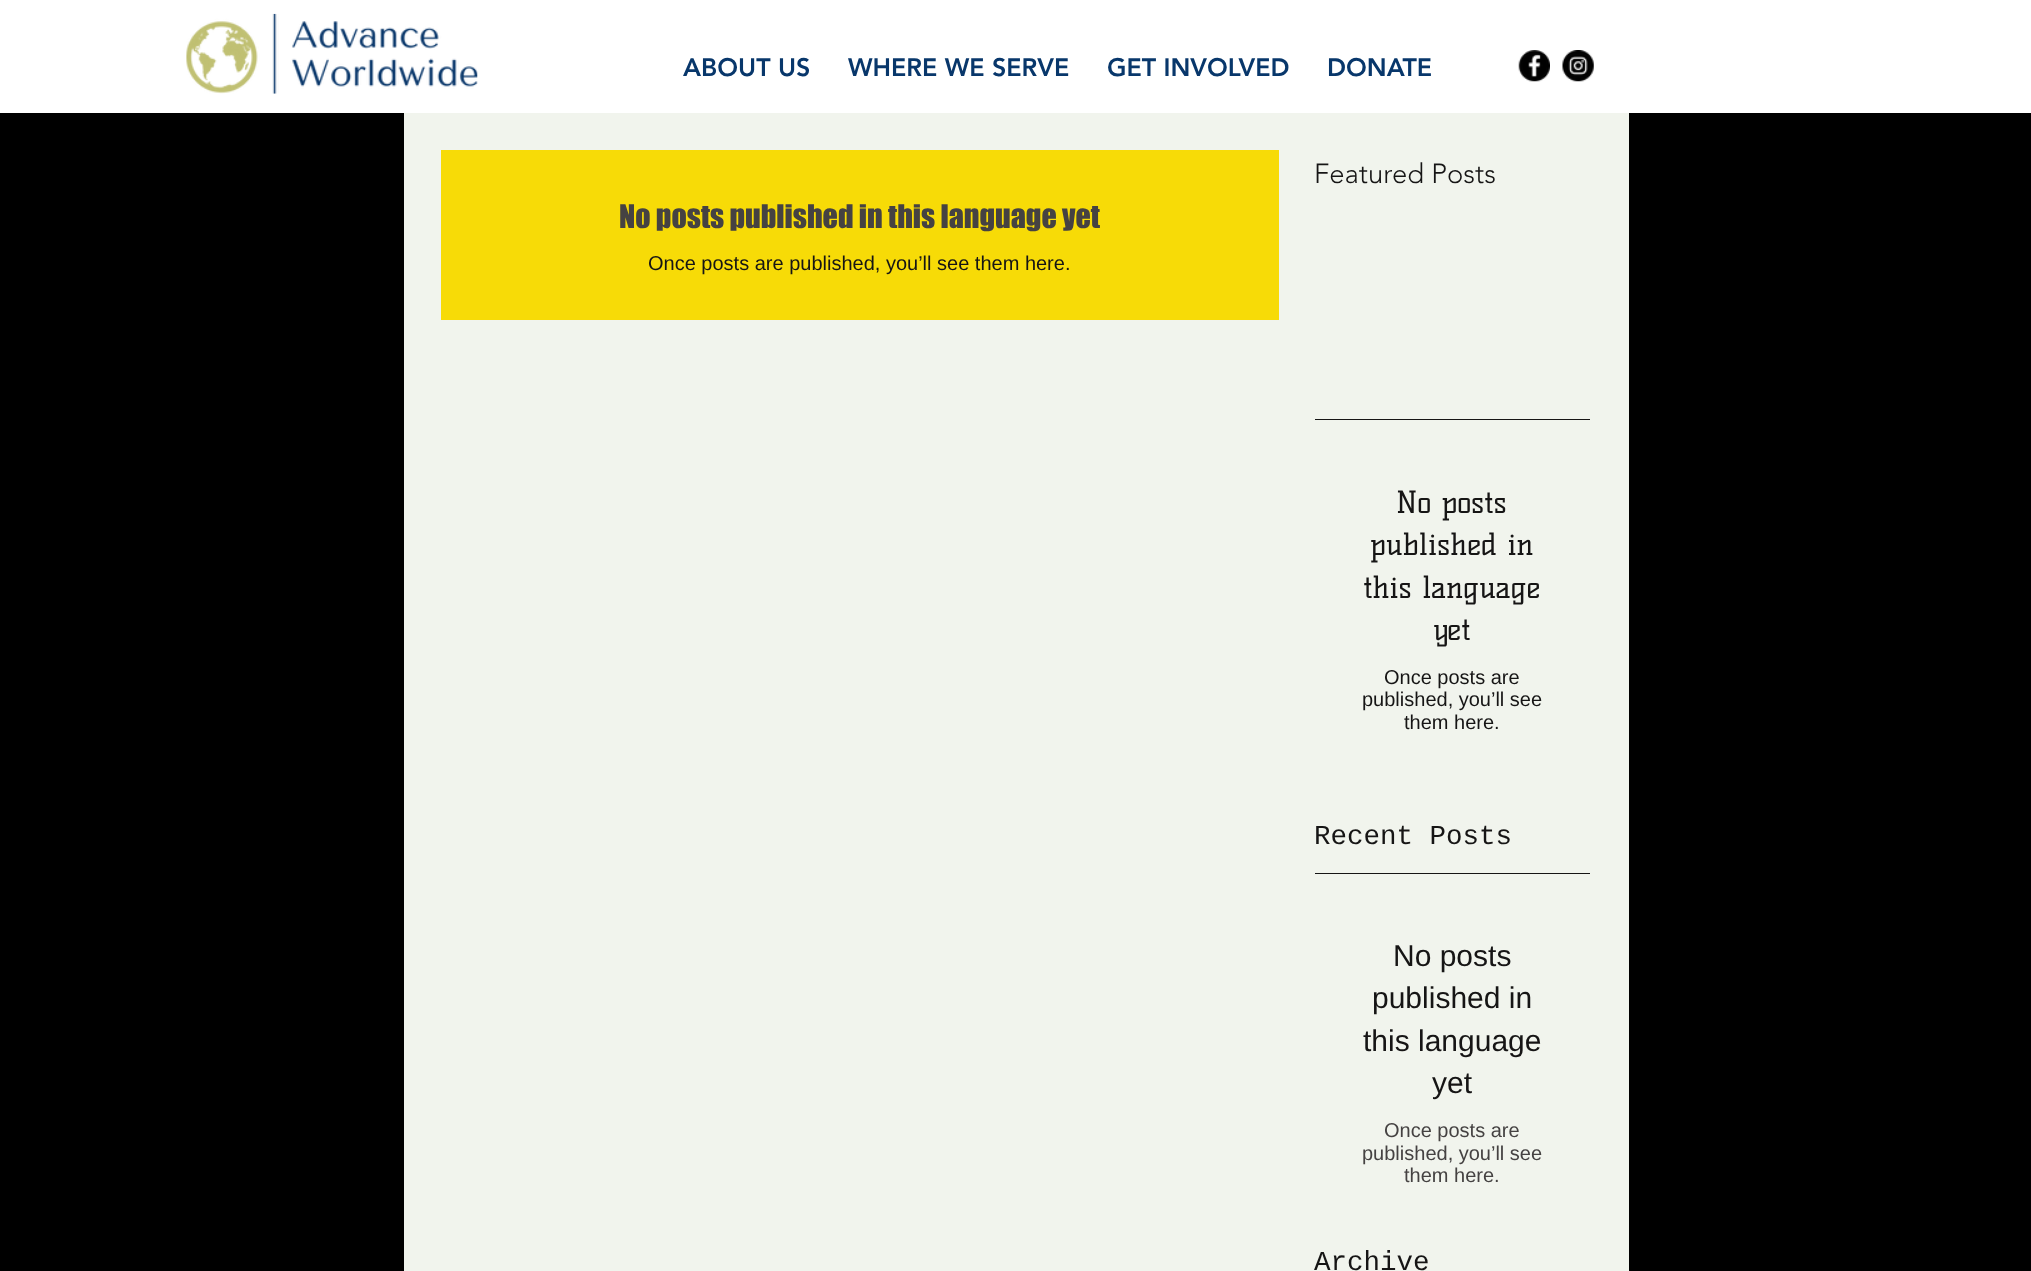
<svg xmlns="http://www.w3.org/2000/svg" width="2031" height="1271">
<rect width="100%" height="100%" fill="#000"/>
<rect width="2031" height="113" fill="#fff"/>
<image x="186" y="13" width="292" height="81" href="media/1.png"/>
<text x="683" y="76" style="font-family:'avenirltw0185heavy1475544';font-size:25px;font-weight:900;fill:#08376b">ABOUT US</text>
<text x="848" y="76" style="font-family:'avenirltw0185heavy1475544';font-size:25px;font-weight:900;fill:#08376b">WHERE WE SERVE</text>
<text x="1107" y="76" style="font-family:'avenirltw0185heavy1475544';font-size:25px;font-weight:900;fill:#08376b">GET INVOLVED</text>
<text x="1327" y="76" style="font-family:'avenirltw0185heavy1475544';font-size:25px;font-weight:900;fill:#08376b">DONATE</text>
<image x="1518" y="50" width="32" height="32" href="media/2.png"/>
<image x="1562" y="50" width="32" height="32" href="media/3.png"/>
<rect x="404" y="113" width="1225" height="1158" fill="#f1f4ed"/>
<text x="1314" y="183" style="font-family:'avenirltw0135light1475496';font-size:27.5px;font-weight:300;fill:#161515">Featured Posts</text>
<rect x="441" y="150" width="838" height="170" fill="#f7db07"/>
<text x="619" y="228" style="font-family:'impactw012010';font-size:30px;fill:#454242">No posts published in this language yet</text>
<text x="648" y="270" style="font-family:Liberation Sans;font-size:20px;fill:#161515">Once posts are published, you’ll see them here.</text>
<rect x="1315" y="419" width="275" height="1" fill="#161515"/>
<text x="1396" y="513" style="font-family:Kelly Slab;font-size:30px;fill:#161515">No posts</text>
<text x="1370" y="555" style="font-family:Kelly Slab;font-size:30px;fill:#161515">published in</text>
<text x="1363" y="598" style="font-family:Kelly Slab;font-size:30px;fill:#161515">this language</text>
<text x="1433" y="640" style="font-family:Kelly Slab;font-size:30px;fill:#161515">yet</text>
<text x="1384" y="684" style="font-family:Liberation Sans;font-size:20px;fill:#161515">Once posts are</text>
<text x="1362" y="706" style="font-family:Liberation Sans;font-size:20px;fill:#161515">published, you’ll see</text>
<text x="1404" y="729" style="font-family:Liberation Sans;font-size:20px;fill:#161515">them here.</text>
<text x="1314" y="844" style="font-family:Liberation Mono;font-size:27.5px;fill:#161515">Recent Posts</text>
<rect x="1315" y="873" width="275" height="1" fill="#161515"/>
<text x="1393" y="966" style="font-family:Liberation Sans;font-size:30px;fill:#161515">No posts</text>
<text x="1372" y="1008" style="font-family:Liberation Sans;font-size:30px;fill:#161515">published in</text>
<text x="1363" y="1051" style="font-family:Liberation Sans;font-size:30px;fill:#161515">this language</text>
<text x="1432" y="1093" style="font-family:Liberation Sans;font-size:30px;fill:#161515">yet</text>
<text x="1384" y="1137" style="font-family:Liberation Sans;font-size:20px;fill:#454242">Once posts are</text>
<text x="1362" y="1160" style="font-family:Liberation Sans;font-size:20px;fill:#454242">published, you’ll see</text>
<text x="1404" y="1182" style="font-family:Liberation Sans;font-size:20px;fill:#454242">them here.</text>
<text x="1314" y="1270" style="font-family:Liberation Mono;font-size:27.5px;fill:#161515">Archive</text>
</svg>
